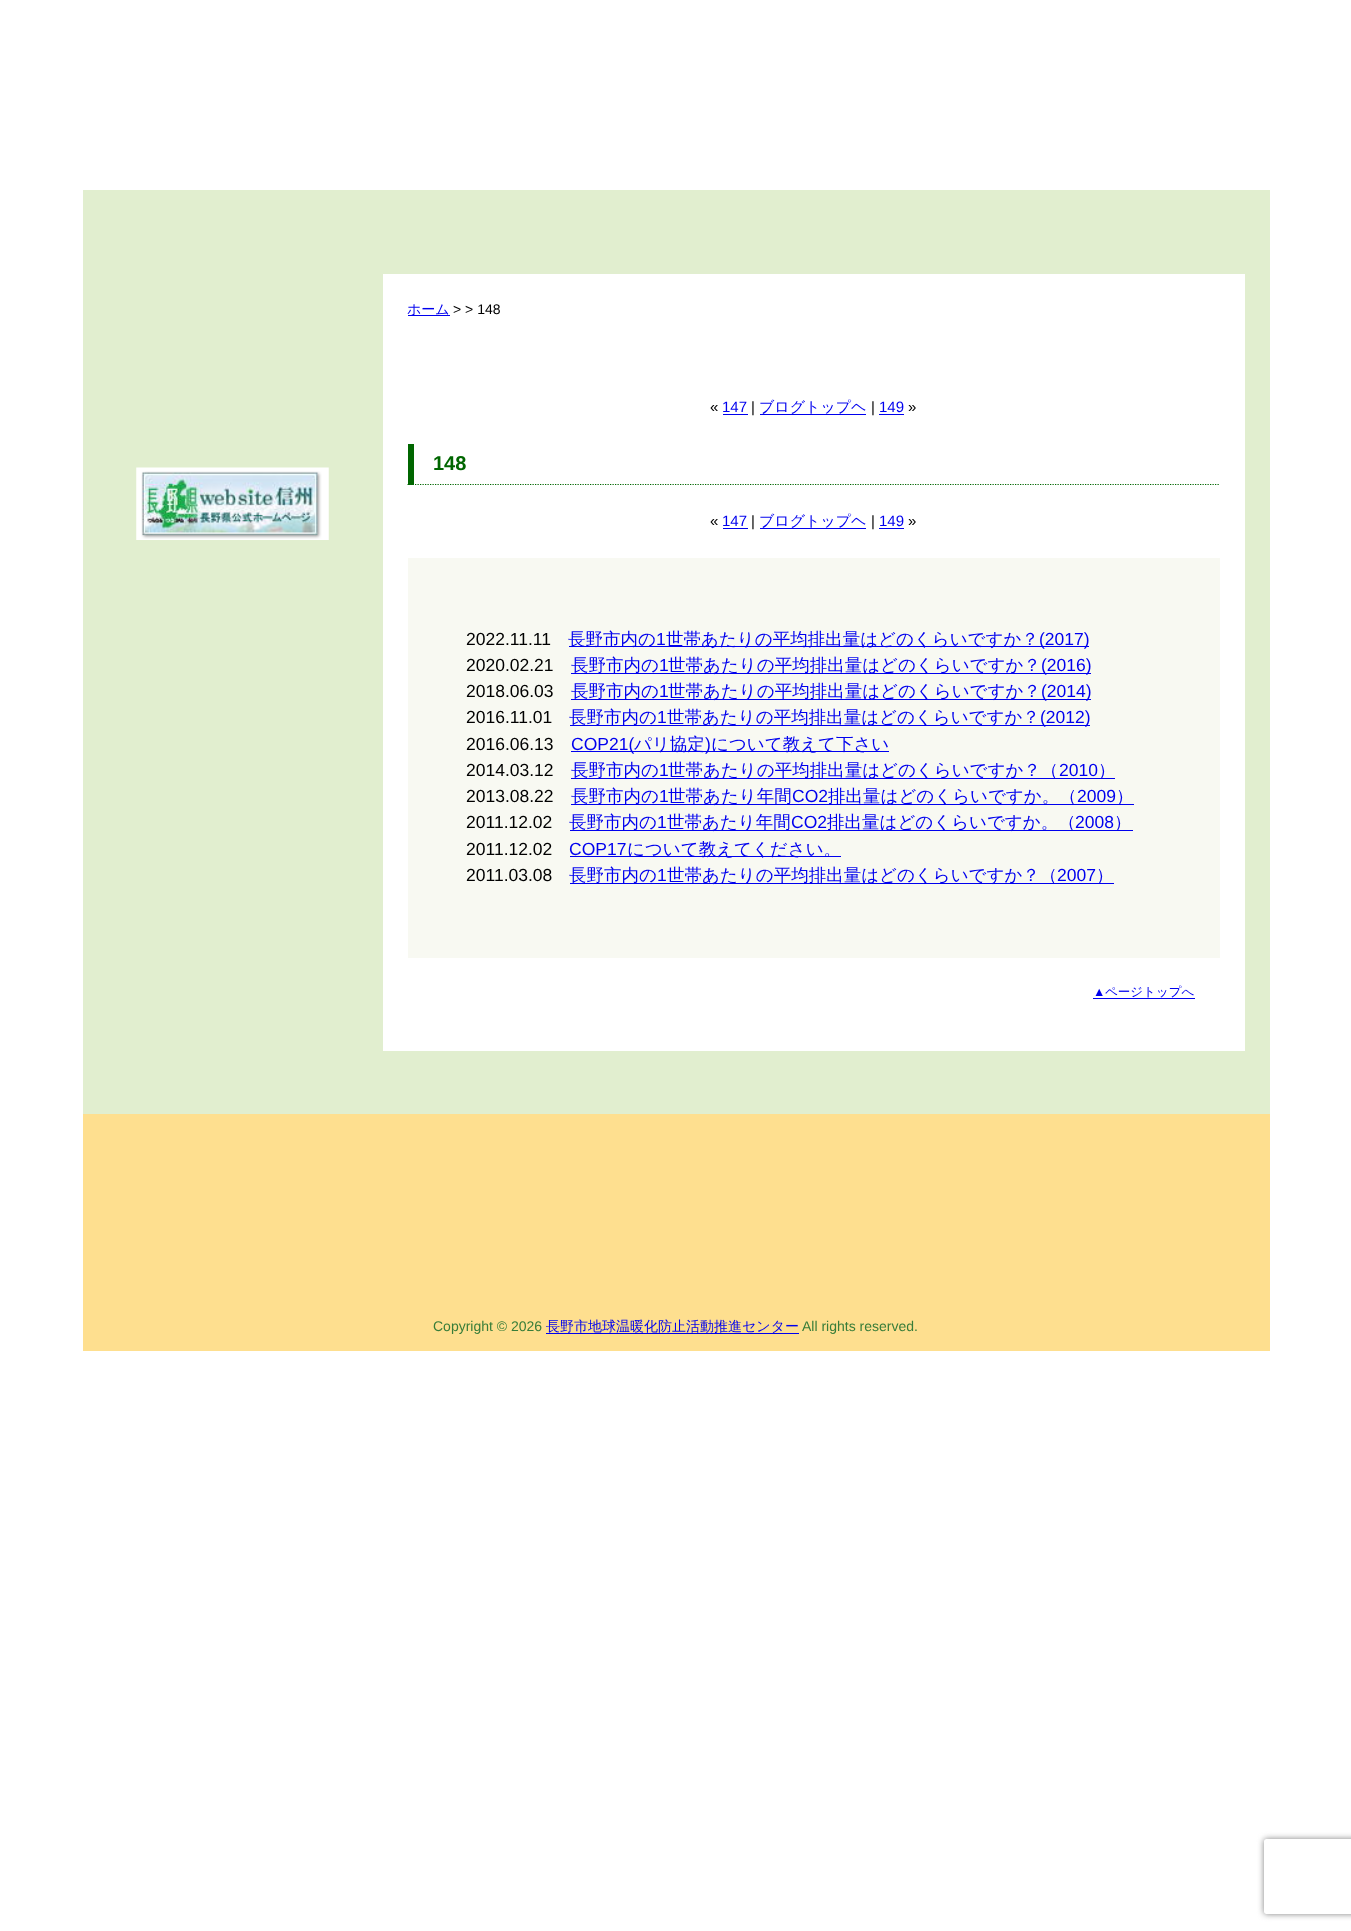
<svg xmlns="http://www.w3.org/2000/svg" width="1351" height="1931">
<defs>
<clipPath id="clip1"><path d="M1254 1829h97v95h-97zm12.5 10h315c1.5 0 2.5 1 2.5 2.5v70c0 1.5-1 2.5-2.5 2.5h-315c-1.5 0-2.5-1-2.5-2.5v-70c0-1.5 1-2.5 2.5-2.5z" clip-rule="evenodd"/></clipPath>
</defs>
<rect width="100%" height="100%" fill="#fff"/>
<rect x="83" y="190" width="1187" height="924" fill="#e1eecf"/>
<image x="136" y="467" width="193" height="73" href="media/1.png"/>
<rect x="383" y="274" width="862" height="777" fill="#fff"/>
<rect x="408" y="315" width="42" height="1" fill="#00e"/>
<text x="407" y="314" style="font-family:WenQuanYi Zen Hei;font-size:14px;font-weight:500;fill:#00e">ホーム</text>
<text x="453" y="314" style="font-family:Liberation Sans;font-size:14px;fill:#000">&gt; &gt; 148</text>
<text x="710" y="412" style="font-family:Liberation Sans;font-size:15px;fill:#000">«</text>
<text x="722" y="412" style="font-family:Liberation Sans;font-size:15px;fill:#00e">147</text>
<rect x="723" y="414" width="25" height="1" fill="#00e"/>
<text x="751" y="412" style="font-family:Liberation Sans;font-size:15px;fill:#000">|</text>
<text x="759" y="412" style="font-family:WenQuanYi Zen Hei;font-size:15px;font-weight:500;fill:#00e">ブログトップヘ</text>
<rect x="760" y="414" width="106" height="1" fill="#00e"/>
<text x="871" y="412" style="font-family:Liberation Sans;font-size:15px;fill:#000">|</text>
<text x="879" y="412" style="font-family:Liberation Sans;font-size:15px;fill:#00e">149</text>
<rect x="879" y="414" width="25" height="1" fill="#00e"/>
<text x="908" y="412" style="font-family:Liberation Sans;font-size:15px;fill:#000">»</text>
<path d="M407.5 484.5h812.5" fill="none" stroke="#060" stroke-width="1.2" stroke-dasharray="1.25 1.25"/>
<rect x="408" y="444" width="6" height="41" fill="#060"/>
<text x="433" y="470" style="font-family:Liberation Sans;font-size:20px;font-weight:bold;fill:#060">148</text>
<text x="710" y="526" style="font-family:Liberation Sans;font-size:15px;fill:#000">«</text>
<text x="722" y="526" style="font-family:Liberation Sans;font-size:15px;fill:#00e">147</text>
<rect x="723" y="528" width="25" height="1" fill="#00e"/>
<text x="751" y="526" style="font-family:Liberation Sans;font-size:15px;fill:#000">|</text>
<text x="759" y="526" style="font-family:WenQuanYi Zen Hei;font-size:15px;font-weight:500;fill:#00e">ブログトップヘ</text>
<rect x="760" y="528" width="106" height="1" fill="#00e"/>
<text x="871" y="526" style="font-family:Liberation Sans;font-size:15px;fill:#000">|</text>
<text x="879" y="526" style="font-family:Liberation Sans;font-size:15px;fill:#00e">149</text>
<rect x="879" y="528" width="25" height="1" fill="#00e"/>
<text x="908" y="526" style="font-family:Liberation Sans;font-size:15px;fill:#000">»</text>
<rect x="408" y="558" width="812" height="400" fill="#f8f9f2"/>
<text x="466" y="645" style="font-family:Liberation Sans;font-size:17.5px;fill:#000">2022.11.11</text>
<rect x="569" y="646" width="520" height="1" fill="#00e"/>
<text x="568" y="645" style="font-family:WenQuanYi Zen Hei;font-size:17.5px;font-weight:500;fill:#00e">長野市内の</text>
<text x="656" y="645" style="font-family:Liberation Sans;font-size:17.5px;fill:#00e">1</text>
<text x="666" y="645" style="font-family:WenQuanYi Zen Hei;font-size:17.5px;font-weight:500;fill:#00e">世帯あたりの平均排出量はどのくらいですか？</text>
<text x="1039" y="645" style="font-family:Liberation Sans;font-size:17.5px;fill:#00e">(2017)</text>
<text x="466" y="671" style="font-family:Liberation Sans;font-size:17.5px;fill:#000">2020.02.21</text>
<rect x="571" y="673" width="520" height="1" fill="#00e"/>
<text x="571" y="671" style="font-family:WenQuanYi Zen Hei;font-size:17.5px;font-weight:500;fill:#00e">長野市内の</text>
<text x="659" y="671" style="font-family:Liberation Sans;font-size:17.5px;fill:#00e">1</text>
<text x="668" y="671" style="font-family:WenQuanYi Zen Hei;font-size:17.5px;font-weight:500;fill:#00e">世帯あたりの平均排出量はどのくらいですか？</text>
<text x="1041" y="671" style="font-family:Liberation Sans;font-size:17.5px;fill:#00e">(2016)</text>
<text x="466" y="697" style="font-family:Liberation Sans;font-size:17.5px;fill:#000">2018.06.03</text>
<rect x="571" y="699" width="520" height="1" fill="#00e"/>
<text x="571" y="697" style="font-family:WenQuanYi Zen Hei;font-size:17.5px;font-weight:500;fill:#00e">長野市内の</text>
<text x="659" y="697" style="font-family:Liberation Sans;font-size:17.5px;fill:#00e">1</text>
<text x="668" y="697" style="font-family:WenQuanYi Zen Hei;font-size:17.5px;font-weight:500;fill:#00e">世帯あたりの平均排出量はどのくらいですか？</text>
<text x="1041" y="697" style="font-family:Liberation Sans;font-size:17.5px;fill:#00e">(2014)</text>
<text x="466" y="723" style="font-family:Liberation Sans;font-size:17.5px;fill:#000">2016.11.01</text>
<rect x="570" y="725" width="520" height="1" fill="#00e"/>
<text x="569" y="723" style="font-family:WenQuanYi Zen Hei;font-size:17.5px;font-weight:500;fill:#00e">長野市内の</text>
<text x="657" y="723" style="font-family:Liberation Sans;font-size:17.5px;fill:#00e">1</text>
<text x="667" y="723" style="font-family:WenQuanYi Zen Hei;font-size:17.5px;font-weight:500;fill:#00e">世帯あたりの平均排出量はどのくらいですか？</text>
<text x="1040" y="723" style="font-family:Liberation Sans;font-size:17.5px;fill:#00e">(2012)</text>
<text x="466" y="750" style="font-family:Liberation Sans;font-size:17.5px;fill:#000">2016.06.13</text>
<rect x="571" y="751" width="318" height="1" fill="#00e"/>
<text x="571" y="750" style="font-family:Liberation Sans;font-size:17.5px;fill:#00e">COP21(</text>
<text x="634" y="750" style="font-family:WenQuanYi Zen Hei;font-size:17.5px;font-weight:500;fill:#00e">パリ協定</text>
<text x="705" y="750" style="font-family:Liberation Sans;font-size:17.5px;fill:#00e">)</text>
<text x="711" y="750" style="font-family:WenQuanYi Zen Hei;font-size:17.5px;font-weight:500;fill:#00e">について教えて下さい</text>
<text x="466" y="776" style="font-family:Liberation Sans;font-size:17.5px;fill:#000">2014.03.12</text>
<rect x="571" y="778" width="544" height="1" fill="#00e"/>
<text x="571" y="776" style="font-family:WenQuanYi Zen Hei;font-size:17.5px;font-weight:500;fill:#00e">長野市内の</text>
<text x="659" y="776" style="font-family:Liberation Sans;font-size:17.5px;fill:#00e">1</text>
<text x="668" y="776" style="font-family:WenQuanYi Zen Hei;font-size:17.5px;font-weight:500;fill:#00e">世帯あたりの平均排出量はどのくらいですか？（</text>
<text x="1059" y="776" style="font-family:Liberation Sans;font-size:17.5px;fill:#00e">2010</text>
<text x="1098" y="776" style="font-family:WenQuanYi Zen Hei;font-size:17.5px;font-weight:500;fill:#00e">）</text>
<text x="466" y="802" style="font-family:Liberation Sans;font-size:17.5px;fill:#000">2013.08.22</text>
<rect x="571" y="804" width="563" height="1" fill="#00e"/>
<text x="571" y="802" style="font-family:WenQuanYi Zen Hei;font-size:17.5px;font-weight:500;fill:#00e">長野市内の</text>
<text x="659" y="802" style="font-family:Liberation Sans;font-size:17.5px;fill:#00e">1</text>
<text x="668" y="802" style="font-family:WenQuanYi Zen Hei;font-size:17.5px;font-weight:500;fill:#00e">世帯あたり年間</text>
<text x="792" y="802" style="font-family:Liberation Sans;font-size:17.5px;fill:#00e">CO2</text>
<text x="828" y="802" style="font-family:WenQuanYi Zen Hei;font-size:17.5px;font-weight:500;fill:#00e">排出量はどのくらいですか。（</text>
<text x="1077" y="802" style="font-family:Liberation Sans;font-size:17.5px;fill:#00e">2009</text>
<text x="1116" y="802" style="font-family:WenQuanYi Zen Hei;font-size:17.5px;font-weight:500;fill:#00e">）</text>
<text x="466" y="828" style="font-family:Liberation Sans;font-size:17.5px;fill:#000">2011.12.02</text>
<rect x="570" y="830" width="563" height="1" fill="#00e"/>
<text x="569" y="828" style="font-family:WenQuanYi Zen Hei;font-size:17.5px;font-weight:500;fill:#00e">長野市内の</text>
<text x="657" y="828" style="font-family:Liberation Sans;font-size:17.5px;fill:#00e">1</text>
<text x="667" y="828" style="font-family:WenQuanYi Zen Hei;font-size:17.5px;font-weight:500;fill:#00e">世帯あたり年間</text>
<text x="791" y="828" style="font-family:Liberation Sans;font-size:17.5px;fill:#00e">CO2</text>
<text x="827" y="828" style="font-family:WenQuanYi Zen Hei;font-size:17.5px;font-weight:500;fill:#00e">排出量はどのくらいですか。（</text>
<text x="1075" y="828" style="font-family:Liberation Sans;font-size:17.5px;fill:#00e">2008</text>
<text x="1114" y="828" style="font-family:WenQuanYi Zen Hei;font-size:17.5px;font-weight:500;fill:#00e">）</text>
<text x="466" y="855" style="font-family:Liberation Sans;font-size:17.5px;fill:#000">2011.12.02</text>
<text x="569" y="855" style="font-family:Liberation Sans;font-size:17.5px;fill:#00e">COP17</text>
<rect x="570" y="856" width="271" height="1" fill="#00e"/>
<text x="627" y="855" style="font-family:WenQuanYi Zen Hei;font-size:17.5px;font-weight:500;fill:#00e">について教えてください。</text>
<text x="466" y="881" style="font-family:Liberation Sans;font-size:17.5px;fill:#000">2011.03.08</text>
<rect x="570" y="883" width="544" height="1" fill="#00e"/>
<text x="569" y="881" style="font-family:WenQuanYi Zen Hei;font-size:17.5px;font-weight:500;fill:#00e">長野市内の</text>
<text x="657" y="881" style="font-family:Liberation Sans;font-size:17.5px;fill:#00e">1</text>
<text x="667" y="881" style="font-family:WenQuanYi Zen Hei;font-size:17.5px;font-weight:500;fill:#00e">世帯あたりの平均排出量はどのくらいですか？（</text>
<text x="1057" y="881" style="font-family:Liberation Sans;font-size:17.5px;fill:#00e">2007</text>
<text x="1096" y="881" style="font-family:WenQuanYi Zen Hei;font-size:17.5px;font-weight:500;fill:#00e">）</text>
<text x="1093" y="996" style="font-family:Liberation Sans;font-size:12.5px;fill:#00e">▲</text>
<rect x="1093" y="998" width="102" height="1" fill="#00e"/>
<text x="1105" y="996" style="font-family:WenQuanYi Zen Hei;font-size:12.5px;font-weight:500;fill:#00e">ページトップへ</text>
<rect x="83" y="1114" width="1187" height="237" fill="#fedf8f"/>
<text x="433" y="1331" style="font-family:Liberation Sans;font-size:14px;fill:#387d39">Copyright © 2026</text>
<rect x="546" y="1333" width="253" height="1" fill="#00e"/>
<text x="546" y="1331" style="font-family:WenQuanYi Zen Hei;font-size:14px;font-weight:500;fill:#00e">長野市地球温暖化防止活動推進センター</text>
<text x="802" y="1331" style="font-family:Liberation Sans;font-size:14px;fill:#387d39">All rights reserved.</text>
<g clip-path="url(#clip1)">
<rect x="1264" y="1839" width="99" height="75" rx="2.5" fill="#808080" filter="blur(3px)"/>
</g>
</svg>
